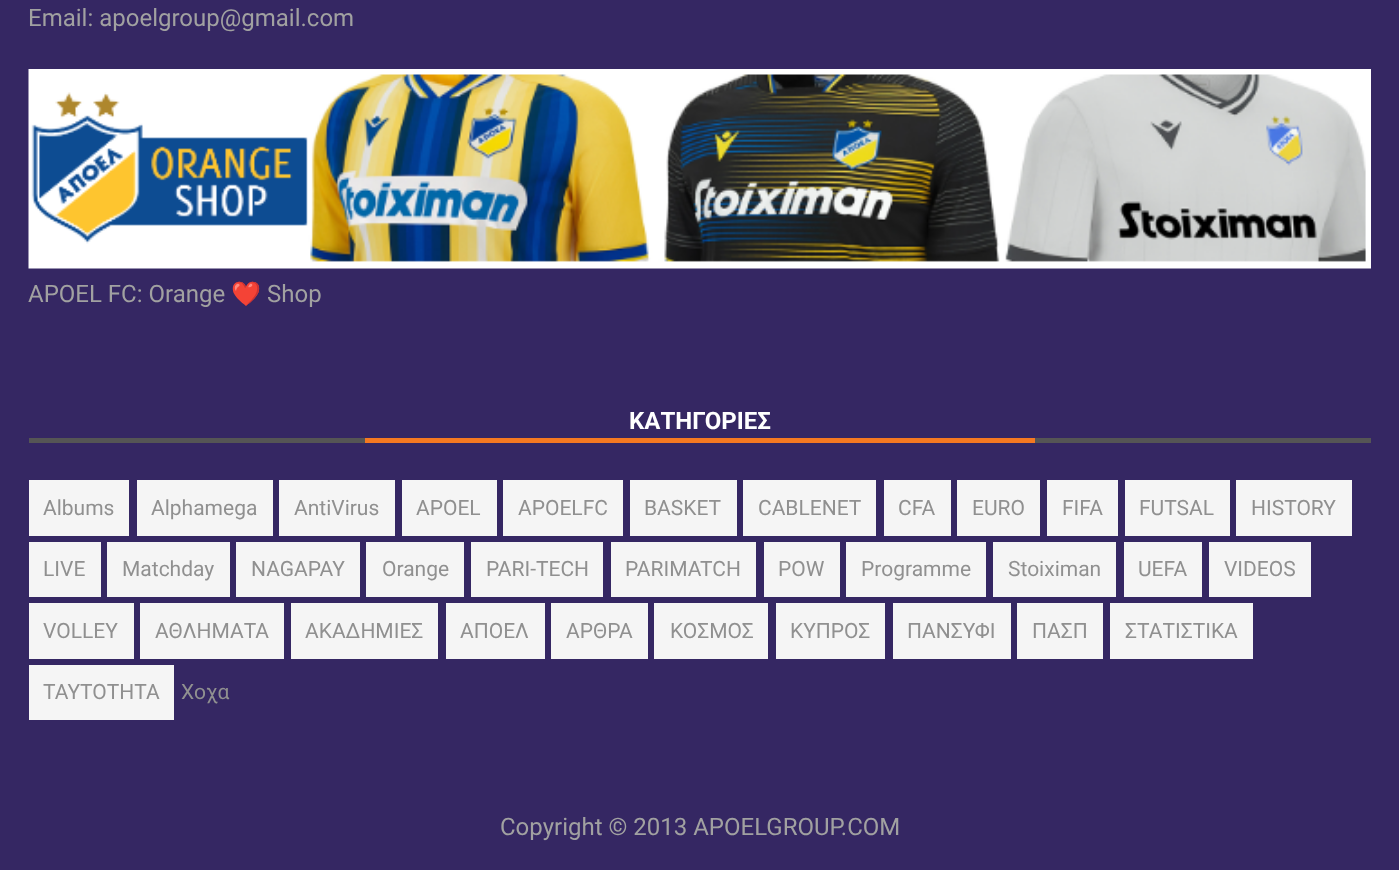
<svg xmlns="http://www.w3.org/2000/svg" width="1399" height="870">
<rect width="100%" height="100%" fill="#352763"/>
<text x="28" y="26" style="font-family:Roboto;font-size:24px;fill:#a1a1a1">Email: apoelgroup@gmail.com</text>
<image x="28" y="69" width="1343" height="200" href="media/1.png"/>
<text x="28" y="302" style="font-family:Roboto;font-size:24px;fill:#a1a1a1">APOEL FC: Orange</text>
<text x="231" y="302" style="font-family:Noto Color Emoji;font-size:24px;fill:#a1a1a1">❤️</text>
<text x="267" y="302" style="font-family:Roboto;font-size:24px;fill:#a1a1a1">Shop</text>
<rect x="29" y="438" width="1342" height="5" fill="#555"/>
<text x="629" y="429" style="font-family:Roboto;font-size:24px;font-weight:bold;fill:#fff">ΚΑΤΗΓΟΡΙΕΣ</text>
<rect x="365" y="438" width="670" height="5" fill="#f57921"/>
<rect x="29" y="480" width="100" height="56" fill="#f5f5f5"/>
<text x="43" y="515" style="font-family:Roboto;font-size:21px;fill:#909090">Albums</text>
<rect x="137" y="480" width="136" height="56" fill="#f5f5f5"/>
<text x="151" y="515" style="font-family:Roboto;font-size:21px;fill:#909090">Alphamega</text>
<rect x="279" y="480" width="116" height="56" fill="#f5f5f5"/>
<text x="294" y="515" style="font-family:Roboto;font-size:21px;fill:#909090">AntiVirus</text>
<rect x="402" y="480" width="95" height="56" fill="#f5f5f5"/>
<text x="416" y="515" style="font-family:Roboto;font-size:21px;fill:#909090">APOEL</text>
<rect x="503" y="480" width="120" height="56" fill="#f5f5f5"/>
<text x="518" y="515" style="font-family:Roboto;font-size:21px;fill:#909090">APOELFC</text>
<rect x="630" y="480" width="107" height="56" fill="#f5f5f5"/>
<text x="644" y="515" style="font-family:Roboto;font-size:21px;fill:#909090">BASKET</text>
<rect x="743" y="480" width="133" height="56" fill="#f5f5f5"/>
<text x="758" y="515" style="font-family:Roboto;font-size:21px;fill:#909090">CABLENET</text>
<rect x="884" y="480" width="67" height="56" fill="#f5f5f5"/>
<text x="898" y="515" style="font-family:Roboto;font-size:21px;fill:#909090">CFA</text>
<rect x="957" y="480" width="83" height="56" fill="#f5f5f5"/>
<text x="972" y="515" style="font-family:Roboto;font-size:21px;fill:#909090">EURO</text>
<rect x="1047" y="480" width="71" height="56" fill="#f5f5f5"/>
<text x="1062" y="515" style="font-family:Roboto;font-size:21px;fill:#909090">FIFA</text>
<rect x="1125" y="480" width="105" height="56" fill="#f5f5f5"/>
<text x="1139" y="515" style="font-family:Roboto;font-size:21px;fill:#909090">FUTSAL</text>
<rect x="1236" y="480" width="116" height="56" fill="#f5f5f5"/>
<text x="1251" y="515" style="font-family:Roboto;font-size:21px;fill:#909090">HISTORY</text>
<rect x="29" y="542" width="72" height="55" fill="#f5f5f5"/>
<text x="43" y="576" style="font-family:Roboto;font-size:21px;fill:#909090">LIVE</text>
<rect x="107" y="542" width="123" height="55" fill="#f5f5f5"/>
<text x="122" y="576" style="font-family:Roboto;font-size:21px;fill:#909090">Matchday</text>
<rect x="236" y="542" width="124" height="55" fill="#f5f5f5"/>
<text x="251" y="576" style="font-family:Roboto;font-size:21px;fill:#909090">NAGAPAY</text>
<rect x="366" y="542" width="98" height="55" fill="#f5f5f5"/>
<text x="382" y="576" style="font-family:Roboto;font-size:21px;fill:#909090">Orange</text>
<rect x="471" y="542" width="132" height="55" fill="#f5f5f5"/>
<text x="486" y="576" style="font-family:Roboto;font-size:21px;fill:#909090">PARI-TECH</text>
<rect x="611" y="542" width="145" height="55" fill="#f5f5f5"/>
<text x="625" y="576" style="font-family:Roboto;font-size:21px;fill:#909090">PARIMATCH</text>
<rect x="764" y="542" width="76" height="55" fill="#f5f5f5"/>
<text x="778" y="576" style="font-family:Roboto;font-size:21px;fill:#909090">POW</text>
<rect x="846" y="542" width="140" height="55" fill="#f5f5f5"/>
<text x="861" y="576" style="font-family:Roboto;font-size:21px;fill:#909090">Programme</text>
<rect x="993" y="542" width="123" height="55" fill="#f5f5f5"/>
<text x="1008" y="576" style="font-family:Roboto;font-size:21px;fill:#909090">Stoiximan</text>
<rect x="1124" y="542" width="78" height="55" fill="#f5f5f5"/>
<text x="1138" y="576" style="font-family:Roboto;font-size:21px;fill:#909090">UEFA</text>
<rect x="1209" y="542" width="102" height="55" fill="#f5f5f5"/>
<text x="1224" y="576" style="font-family:Roboto;font-size:21px;fill:#909090">VIDEOS</text>
<rect x="29" y="603" width="105" height="56" fill="#f5f5f5"/>
<text x="43" y="638" style="font-family:Roboto;font-size:21px;fill:#909090">VOLLEY</text>
<rect x="140" y="603" width="144" height="56" fill="#f5f5f5"/>
<text x="155" y="638" style="font-family:Roboto;font-size:21px;fill:#909090">ΑΘΛΗΜΑΤΑ</text>
<rect x="291" y="603" width="147" height="56" fill="#f5f5f5"/>
<text x="305" y="638" style="font-family:Roboto;font-size:21px;fill:#909090">ΑΚΑΔΗΜΙΕΣ</text>
<rect x="446" y="603" width="99" height="56" fill="#f5f5f5"/>
<text x="460" y="638" style="font-family:Roboto;font-size:21px;fill:#909090">ΑΠΟΕΛ</text>
<rect x="551" y="603" width="97" height="56" fill="#f5f5f5"/>
<text x="566" y="638" style="font-family:Roboto;font-size:21px;fill:#909090">ΑΡΘΡΑ</text>
<rect x="654" y="603" width="114" height="56" fill="#f5f5f5"/>
<text x="670" y="638" style="font-family:Roboto;font-size:21px;fill:#909090">ΚΟΣΜΟΣ</text>
<rect x="776" y="603" width="109" height="56" fill="#f5f5f5"/>
<text x="790" y="638" style="font-family:Roboto;font-size:21px;fill:#909090">ΚΥΠΡΟΣ</text>
<rect x="893" y="603" width="118" height="56" fill="#f5f5f5"/>
<text x="907" y="638" style="font-family:Roboto;font-size:21px;fill:#909090">ΠΑΝΣΥΦΙ</text>
<rect x="1017" y="603" width="86" height="56" fill="#f5f5f5"/>
<text x="1032" y="638" style="font-family:Roboto;font-size:21px;fill:#909090">ΠΑΣΠ</text>
<rect x="1110" y="603" width="143" height="56" fill="#f5f5f5"/>
<text x="1125" y="638" style="font-family:Roboto;font-size:21px;fill:#909090">ΣΤΑΤΙΣΤΙΚΑ</text>
<rect x="29" y="665" width="145" height="55" fill="#f5f5f5"/>
<text x="43" y="699" style="font-family:Roboto;font-size:21px;fill:#909090">ΤΑΥΤΟΤΗΤΑ</text>
<text x="181" y="699" style="font-family:Roboto;font-size:21px;fill:#909090">Χοχα</text>
<text x="500" y="835" style="font-family:Roboto;font-size:24px;fill:#a1a1a1">Copyright © 2013 APOELGROUP.COM</text>
</svg>
